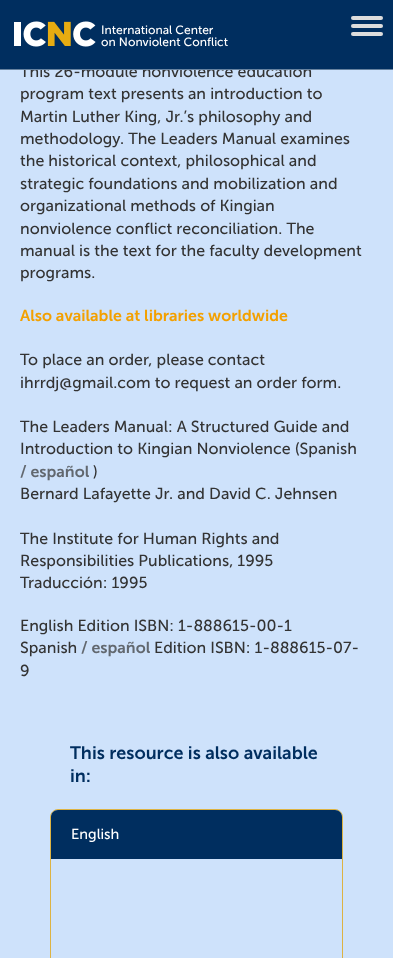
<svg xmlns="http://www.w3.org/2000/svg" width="393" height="958">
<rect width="100%" height="100%" fill="#cee2fb"/>
<text x="20" y="77" style="font-family:'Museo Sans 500';font-size:16px;fill:#333">This 26-module nonviolence education</text>
<rect width="393" height="69" fill="#002e5f"/>
<rect y="69" width="393" height="1" fill="#66829f"/>
<image x="14" y="21" width="82" height="26" href="media/1.png"/>
<text x="101" y="34" style="font-family:'Museo Sans 500';font-size:12px;fill:#fff">International Center</text>
<text x="101" y="46" style="font-family:'Museo Sans 500';font-size:12px;fill:#fff">on Nonviolent Conflict</text>
<rect x="351" y="16" width="32" height="4" rx="2" fill="#ddd"/>
<rect x="351" y="24" width="32" height="4" rx="2" fill="#ddd"/>
<rect x="351" y="32" width="32" height="4" rx="2" fill="#ddd"/>
<text x="20" y="99" style="font-family:'Museo Sans 500';font-size:16px;fill:#333">program text presents an introduction to</text>
<text x="20" y="122" style="font-family:'Museo Sans 500';font-size:16px;fill:#333">Martin Luther King, Jr.’s philosophy and</text>
<text x="20" y="144" style="font-family:'Museo Sans 500';font-size:16px;fill:#333">methodology. The Leaders Manual examines</text>
<text x="20" y="166" style="font-family:'Museo Sans 500';font-size:16px;fill:#333">the historical context, philosophical and</text>
<text x="20" y="189" style="font-family:'Museo Sans 500';font-size:16px;fill:#333">strategic foundations and mobilization and</text>
<text x="20" y="211" style="font-family:'Museo Sans 500';font-size:16px;fill:#333">organizational methods of Kingian</text>
<text x="20" y="234" style="font-family:'Museo Sans 500';font-size:16px;fill:#333">nonviolence conflict reconciliation. The</text>
<text x="20" y="256" style="font-family:'Museo Sans 500';font-size:16px;fill:#333">manual is the text for the faculty development</text>
<text x="20" y="278" style="font-family:'Museo Sans 500';font-size:16px;fill:#333">programs.</text>
<text x="20" y="321" style="font-family:'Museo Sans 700';font-size:16px;font-weight:600;fill:#f3a000">Also available at libraries worldwide</text>
<text x="20" y="365" style="font-family:'Museo Sans 500';font-size:16px;fill:#333">To place an order, please contact</text>
<text x="20" y="388" style="font-family:'Museo Sans 500';font-size:16px;fill:#333">ihrrdj@gmail.com to request an order form.</text>
<text x="20" y="432" style="font-family:'Museo Sans 500';font-size:16px;fill:#333">The Leaders Manual: A Structured Guide and</text>
<text x="20" y="454" style="font-family:'Museo Sans 500';font-size:16px;fill:#333">Introduction to Kingian Nonviolence (Spanish</text>
<text x="20" y="477" style="font-family:'Museo Sans 700';font-size:16px;font-weight:600;fill:#62686f">/ español</text>
<text x="93" y="477" style="font-family:'Museo Sans 500';font-size:16px;fill:#333">)</text>
<text x="20" y="499" style="font-family:'Museo Sans 500';font-size:16px;fill:#333">Bernard Lafayette Jr. and David C. Jehnsen</text>
<text x="20" y="544" style="font-family:'Museo Sans 500';font-size:16px;fill:#333">The Institute for Human Rights and</text>
<text x="20" y="566" style="font-family:'Museo Sans 500';font-size:16px;fill:#333">Responsibilities Publications, 1995</text>
<text x="20" y="588" style="font-family:'Museo Sans 500';font-size:16px;fill:#333">Traducción: 1995</text>
<text x="20" y="631" style="font-family:'Museo Sans 500';font-size:16px;fill:#333">English Edition ISBN: 1-888615-00-1</text>
<text x="20" y="653" style="font-family:'Museo Sans 500';font-size:16px;fill:#333">Spanish</text>
<text x="81" y="653" style="font-family:'Museo Sans 700';font-size:16px;font-weight:600;fill:#62686f">/ español</text>
<text x="154" y="653" style="font-family:'Museo Sans 500';font-size:16px;fill:#333">Edition ISBN: 1-888615-07-</text>
<text x="20" y="676" style="font-family:'Museo Sans 500';font-size:16px;fill:#333">9</text>
<text x="70" y="759" style="font-family:'Museo Sans 700';font-size:18px;font-weight:600;fill:#002e5f">This resource is also available</text>
<text x="70" y="782" style="font-family:'Museo Sans 700';font-size:18px;font-weight:600;fill:#002e5f">in:</text>
<rect x="50.5" y="809.5" width="292" height="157" rx="7.5" fill="none" stroke="#ddb343"/>
<path d="M58 810h277c4 0 7 3 7 7v42h-291v-42c0-4 3-7 7-7z" fill="#002e5f"/>
<text x="71" y="839" style="font-family:'Museo Sans 500';font-size:14.5px;fill:#fff">English</text>
</svg>
